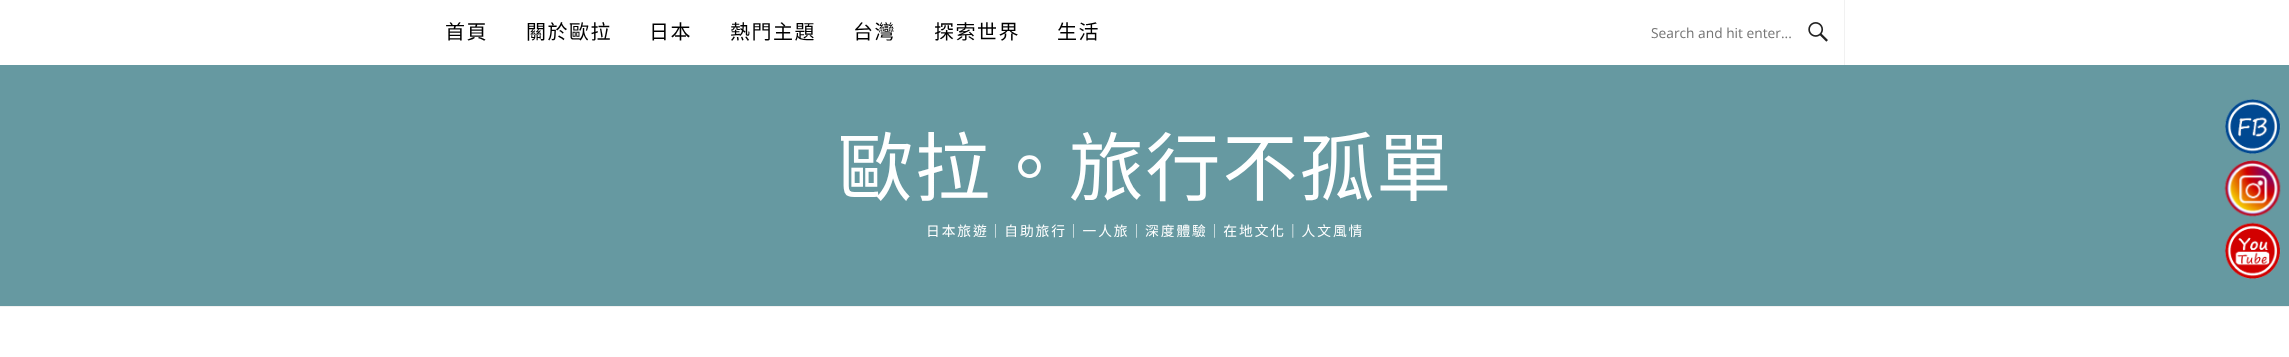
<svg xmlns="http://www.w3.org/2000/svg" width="2289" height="357">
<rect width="100%" height="100%" fill="#fff"/>
<text x="445" y="39" style="font-family:Noto Sans CJK TC;font-size:20px;letter-spacing:1.5px;fill:#000">首頁</text>
<text x="526" y="39" style="font-family:Noto Sans CJK TC;font-size:20px;letter-spacing:1.5px;fill:#000">關於歐拉</text>
<text x="649" y="39" style="font-family:Noto Sans CJK TC;font-size:20px;letter-spacing:1.5px;fill:#000">日本</text>
<text x="730" y="39" style="font-family:Noto Sans CJK TC;font-size:20px;letter-spacing:1.5px;fill:#000">熱門主題</text>
<text x="853" y="39" style="font-family:Noto Sans CJK TC;font-size:20px;letter-spacing:1.5px;fill:#000">台灣</text>
<text x="934" y="39" style="font-family:Noto Sans CJK TC;font-size:20px;letter-spacing:1.5px;fill:#000">探索世界</text>
<text x="1057" y="39" style="font-family:Noto Sans CJK TC;font-size:20px;letter-spacing:1.5px;fill:#000">生活</text>
<rect x="1844" width="1" height="65" fill="#f1f1f1"/>
<text x="1651" y="38" style="font-family:Open Sans;font-size:13.75px;fill:#757575">Search and hit enter...</text>
<image x="1808" y="22" width="20" height="20" href="media/1.png"/>
<rect y="65" width="2289" height="241" fill="#6699a1"/>
<text x="838" y="195" style="font-family:Noto Sans CJK TC;font-size:75px;letter-spacing:1.9px;fill:#fff">歐拉。旅行不孤單</text>
<text x="926" y="236" style="font-family:Noto Sans CJK TC;font-size:13.75px;letter-spacing:1.9px;fill:#fff">日本旅遊｜自助旅行｜一人旅｜深度體驗｜在地文化｜人文風情</text>
<rect y="306" width="2289" height="1" fill="#f1f1f1"/>
<image x="2225" y="99" width="56" height="55" href="media/2.png"/>
<image x="2224" y="160" width="57" height="57" href="media/3.png"/>
<image x="2224" y="222" width="57" height="57" href="media/4.png"/>
</svg>
